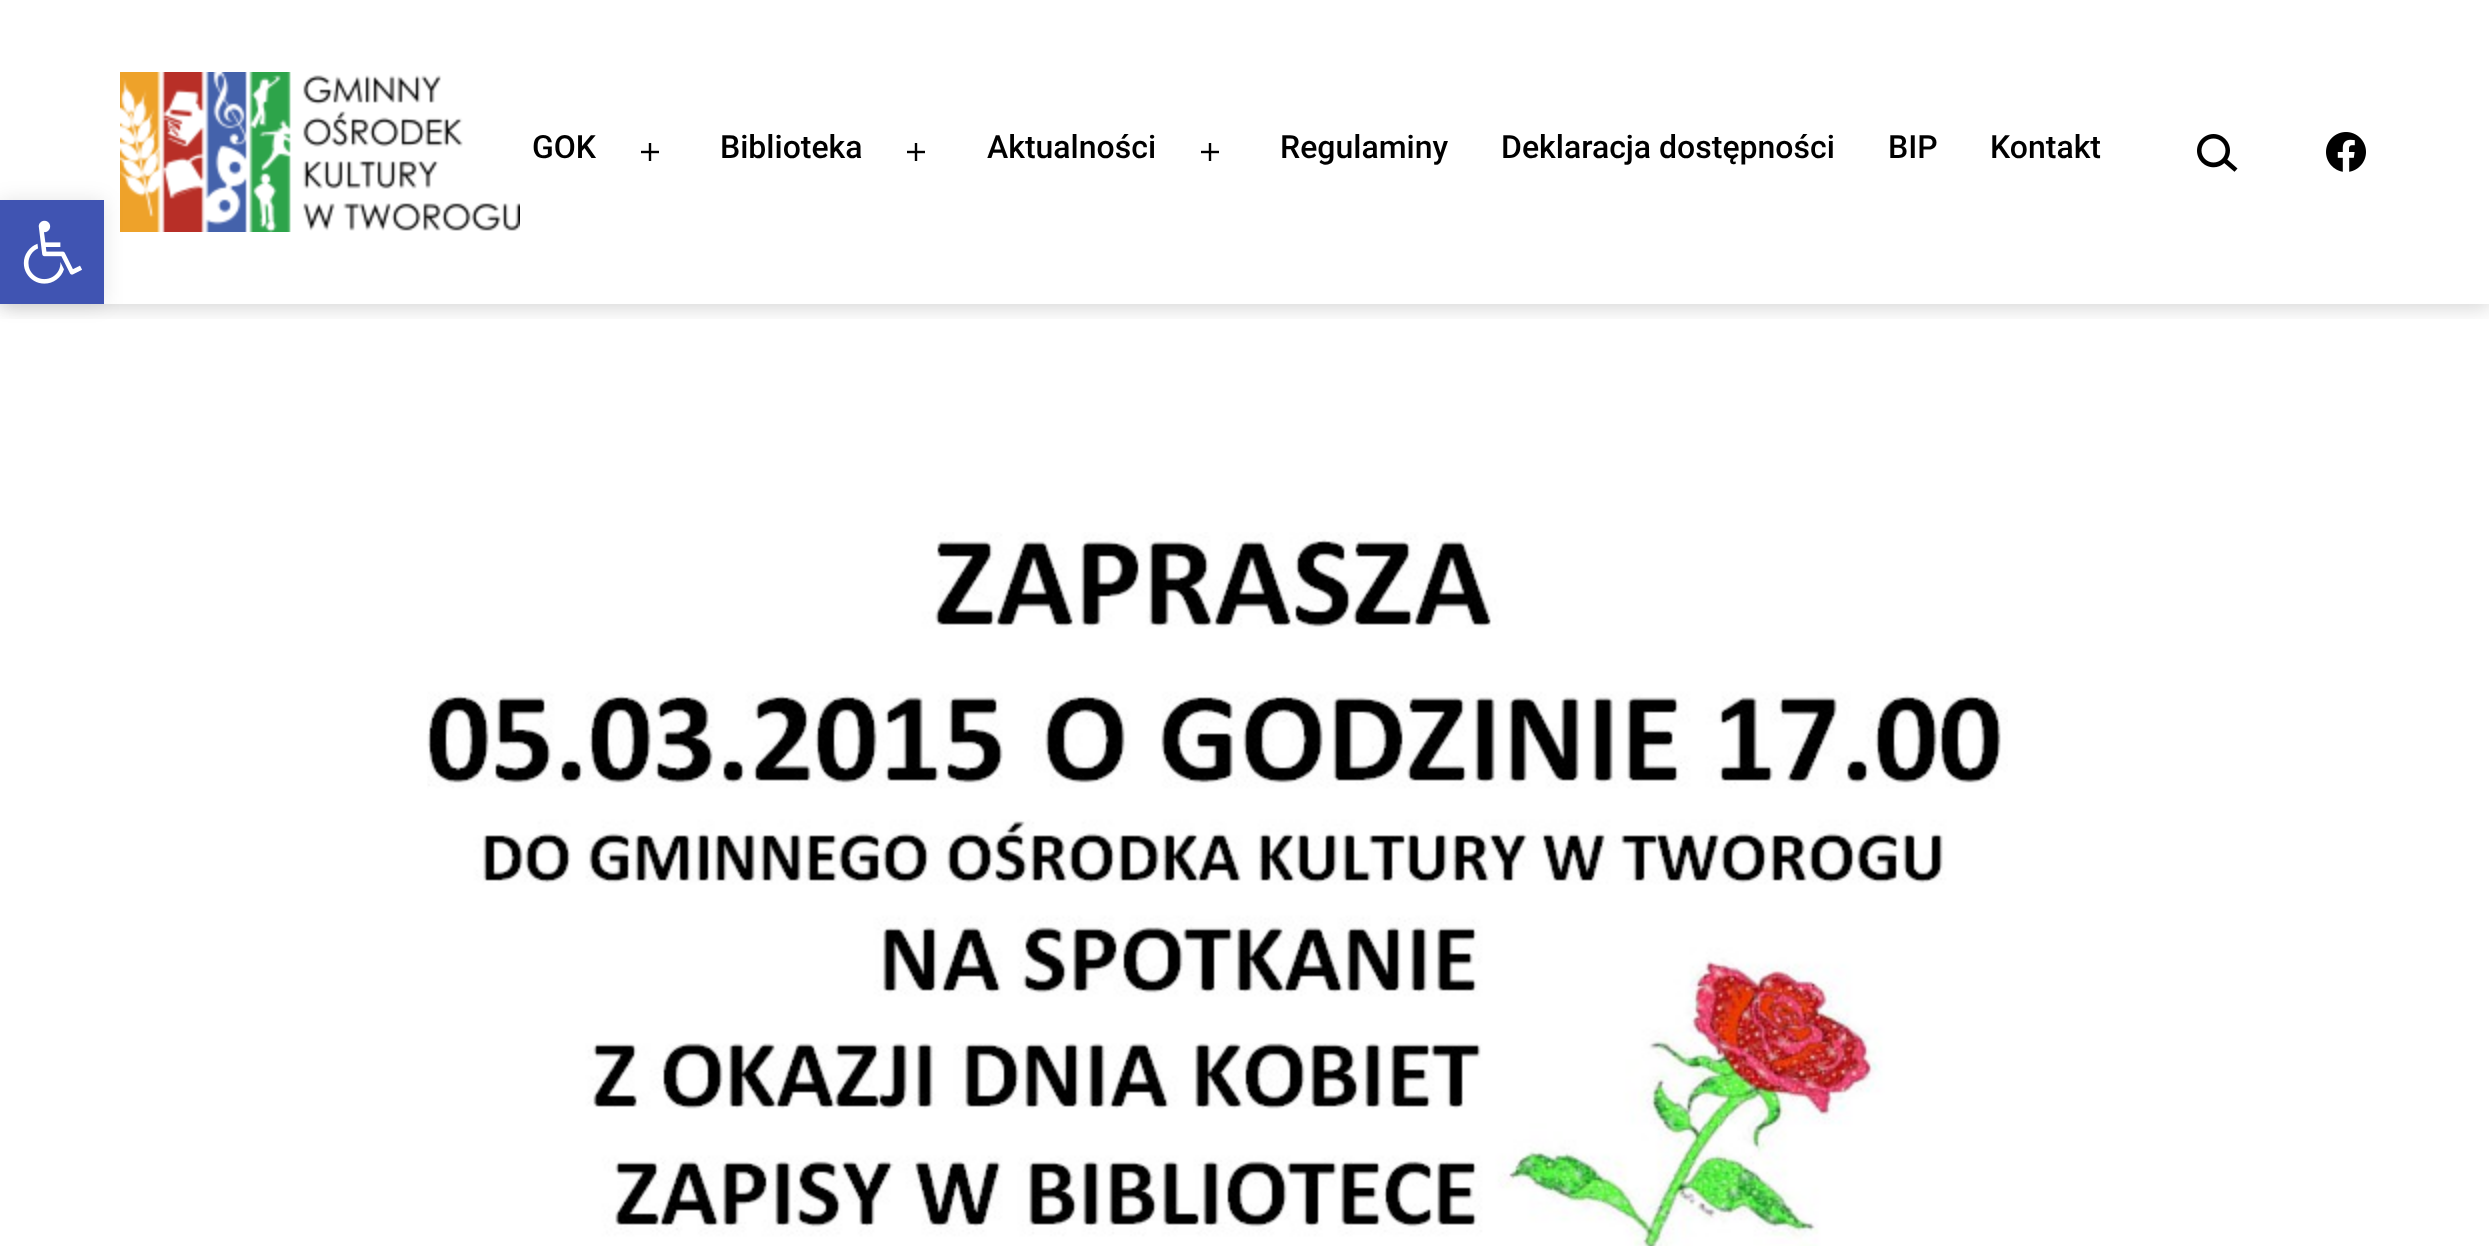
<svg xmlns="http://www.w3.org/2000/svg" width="2489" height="1246">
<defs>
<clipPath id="clip1"><rect x="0" y="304" width="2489" height="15"/></clipPath>
</defs>
<rect width="100%" height="100%" fill="#fff"/>
<g clip-path="url(#clip1)">
<rect y="4" width="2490" height="304" fill="#00000029" filter="blur(10px)"/>
</g>
<image x="120" y="72" width="400" height="160" href="media/1.png"/>
<text x="532" y="158" style="font-family:Roboto;font-size:32px;font-weight:500;fill:#000">GOK</text>
<image x="641" y="143" width="18" height="18" href="media/2.png"/>
<text x="720" y="158" style="font-family:Roboto;font-size:32px;font-weight:500;fill:#000">Biblioteka</text>
<image x="907" y="143" width="18" height="18" href="media/2.png"/>
<text x="987" y="158" style="font-family:Roboto;font-size:32px;font-weight:500;fill:#000">Aktualności</text>
<image x="1201" y="143" width="18" height="18" href="media/2.png"/>
<text x="1280" y="158" style="font-family:Roboto;font-size:32px;font-weight:500;fill:#000">Regulaminy</text>
<text x="1501" y="158" style="font-family:Roboto;font-size:32px;font-weight:500;fill:#000">Deklaracja dostępności</text>
<text x="1888" y="158" style="font-family:Roboto;font-size:32px;font-weight:500;fill:#000">BIP</text>
<text x="1990" y="158" style="font-family:Roboto;font-size:32px;font-weight:500;fill:#000">Kontakt</text>
<image x="2197" y="134" width="41" height="38" href="media/3.png"/>
<image x="2326" y="132" width="40" height="40" href="media/4.png"/>
<image x="427" y="532" width="1581" height="714" href="media/5.png"/>
<rect y="200" width="104" height="104" fill="#0000001a" filter="blur(10px)"/>
<rect y="200" width="104" height="104" fill="#4054b2"/>
<image x="23" y="220" width="59" height="64" href="media/6.png"/>
</svg>
